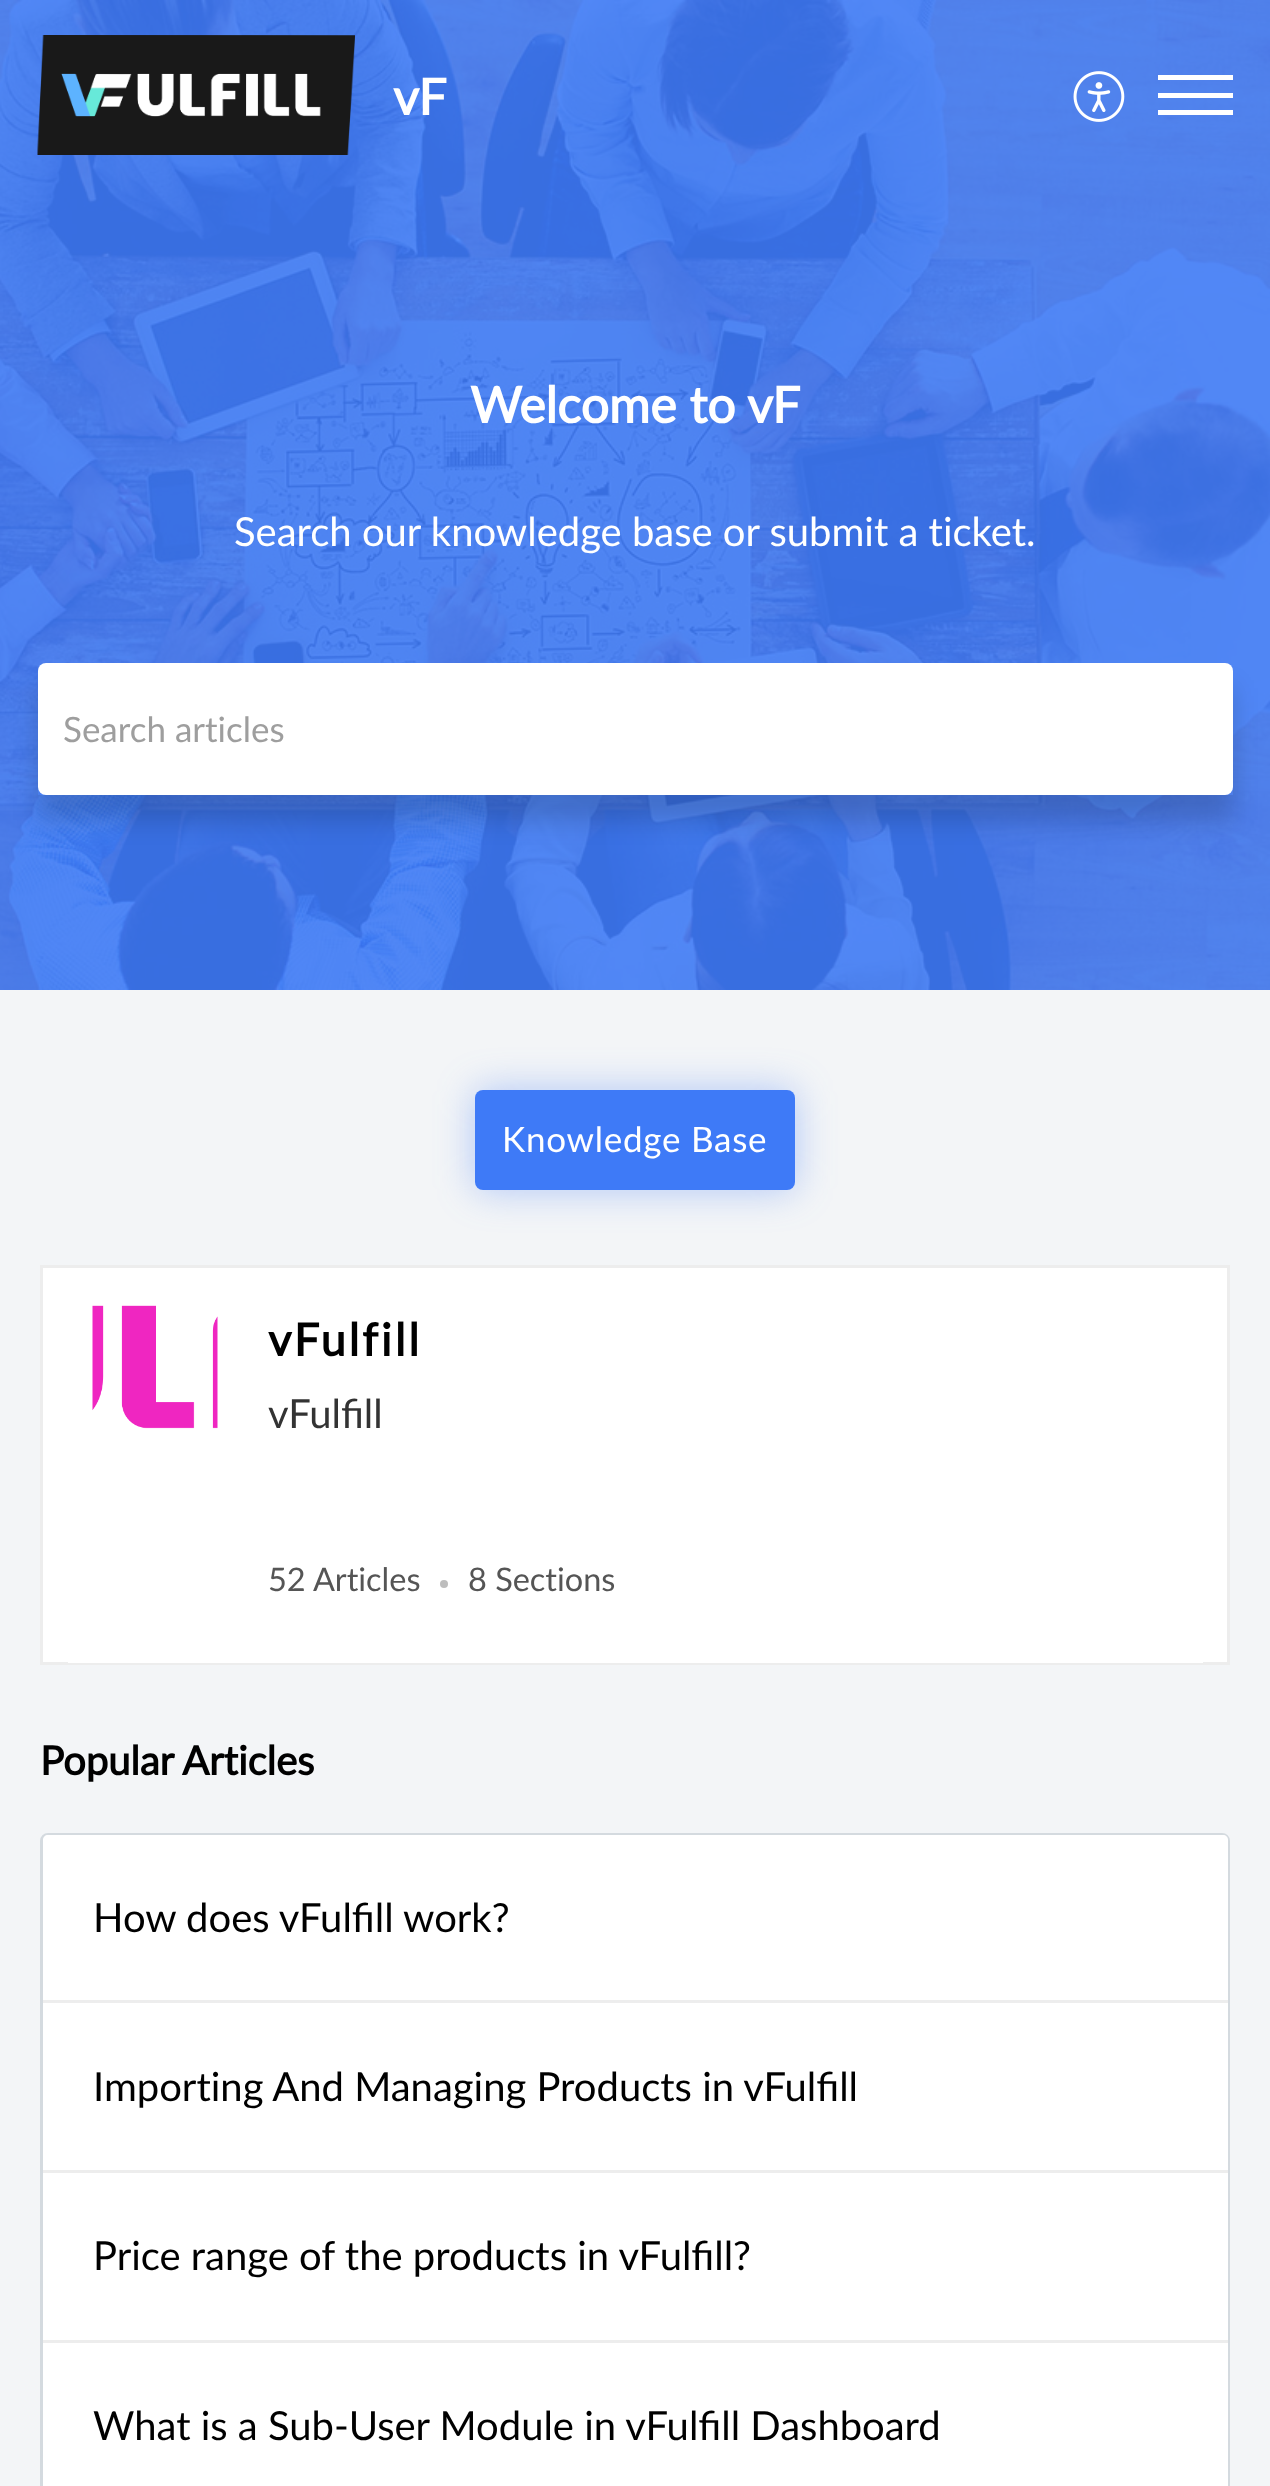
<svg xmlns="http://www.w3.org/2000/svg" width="1270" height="2486">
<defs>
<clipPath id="clip1"><path d="M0 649h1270v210h-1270zm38 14h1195v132h-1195z" clip-rule="evenodd"/></clipPath>
</defs>
<rect width="100%" height="100%" fill="#f3f5f7"/>
<image x="0" y="0" width="1270" height="990" href="media/1.png"/>
<image x="37" y="35" width="318" height="120" href="media/2.png"/>
<text x="393" y="115" style="font-family:Lato;font-size:50px;font-weight:bold;fill:#fff">vF</text>
<image x="1073" y="71" width="52" height="51" href="media/3.png"/>
<rect x="1158" y="93" width="75" height="5" fill="#fff"/>
<rect x="1158" y="75" width="75" height="5" fill="#fff"/>
<rect x="1158" y="110" width="75" height="5" fill="#fff"/>
<text x="470" y="423" style="font-family:Lato;font-size:50px;font-weight:bold;fill:#fff">Welcome to vF</text>
<text x="234" y="546" style="font-family:Lato;font-size:40px;fill:#fff">Search our knowledge base or submit a ticket.</text>
<g clip-path="url(#clip1)">
<rect x="38" y="688" width="1195" height="132" fill="#00000029" filter="blur(12.5px)"/>
</g>
<rect x="38" y="663" width="1195" height="132" rx="8" fill="#fff"/>
<text x="63" y="742" style="font-family:Lato;font-size:35px;fill:#9e9e9e">Search articles</text>
<rect x="475" y="1090" width="320" height="100" rx="8" fill="#3e7af761" filter="blur(19px)"/>
<rect x="475" y="1090" width="320" height="100" rx="8" fill="#3e7af7"/>
<text x="502" y="1152" style="font-family:Lato;font-size:35px;letter-spacing:0.75px;fill:#fff">Knowledge Base</text>
<rect x="41.5" y="1266.5" width="1187" height="397" fill="#fff" stroke="#ededed" stroke-width="3"/>
<rect x="68" y="1662" width="1135" height="1" fill="#fff"/>
<image x="92" y="1305" width="126" height="124" href="media/4.png"/>
<text x="268" y="1356" style="font-family:Lato;font-size:45px;font-weight:bold;letter-spacing:3px;fill:#000">vFulfill</text>
<text x="268" y="1428" style="font-family:Lato;font-size:40px;fill:#333">vFulfill</text>
<text x="268" y="1591" style="font-family:Lato;font-size:32.5px;fill:#555">52 Articles</text>
<circle cx="444" cy="1584" r="4" fill="#bdbdbd"/>
<text x="468" y="1591" style="font-family:Lato;font-size:32.5px;fill:#555">8 Sections</text>
<text x="40" y="1775" style="font-family:Lato;font-size:40px;font-weight:bold;fill:#000">Popular</text>
<text x="182" y="1775" style="font-family:Lato;font-size:40px;font-weight:bold;fill:#000">Articles</text>
<rect x="41.5" y="1834.5" width="1187" height="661" rx="6.5" fill="none" stroke="#d4dadf" stroke-width="3"/>
<path d="M48 1835h1175c3 0 5 2 5 5v163h-1185v-163c0-3 2-5 5-5z" fill="#fff"/>
<rect x="43" y="2000" width="1185" height="3" fill="#ededed"/>
<text x="93" y="1932" style="font-family:Lato;font-size:40px;fill:#000">How does vFulfill work?</text>
<rect x="43" y="2003" width="1185" height="167" fill="#fff"/>
<rect x="43" y="2170" width="1185" height="3" fill="#ededed"/>
<text x="93" y="2101" style="font-family:Lato;font-size:40px;fill:#000">Importing And Managing Products in vFulfill</text>
<rect x="43" y="2173" width="1185" height="167" fill="#fff"/>
<rect x="43" y="2340" width="1185" height="3" fill="#ededed"/>
<text x="93" y="2270" style="font-family:Lato;font-size:40px;fill:#000">Price range of the products in vFulfill?</text>
<rect x="43" y="2343" width="1185" height="143" fill="#fff"/>
<text x="93" y="2440" style="font-family:Lato;font-size:40px;fill:#000">What is a Sub-User Module in vFulfill Dashboard</text>
</svg>
